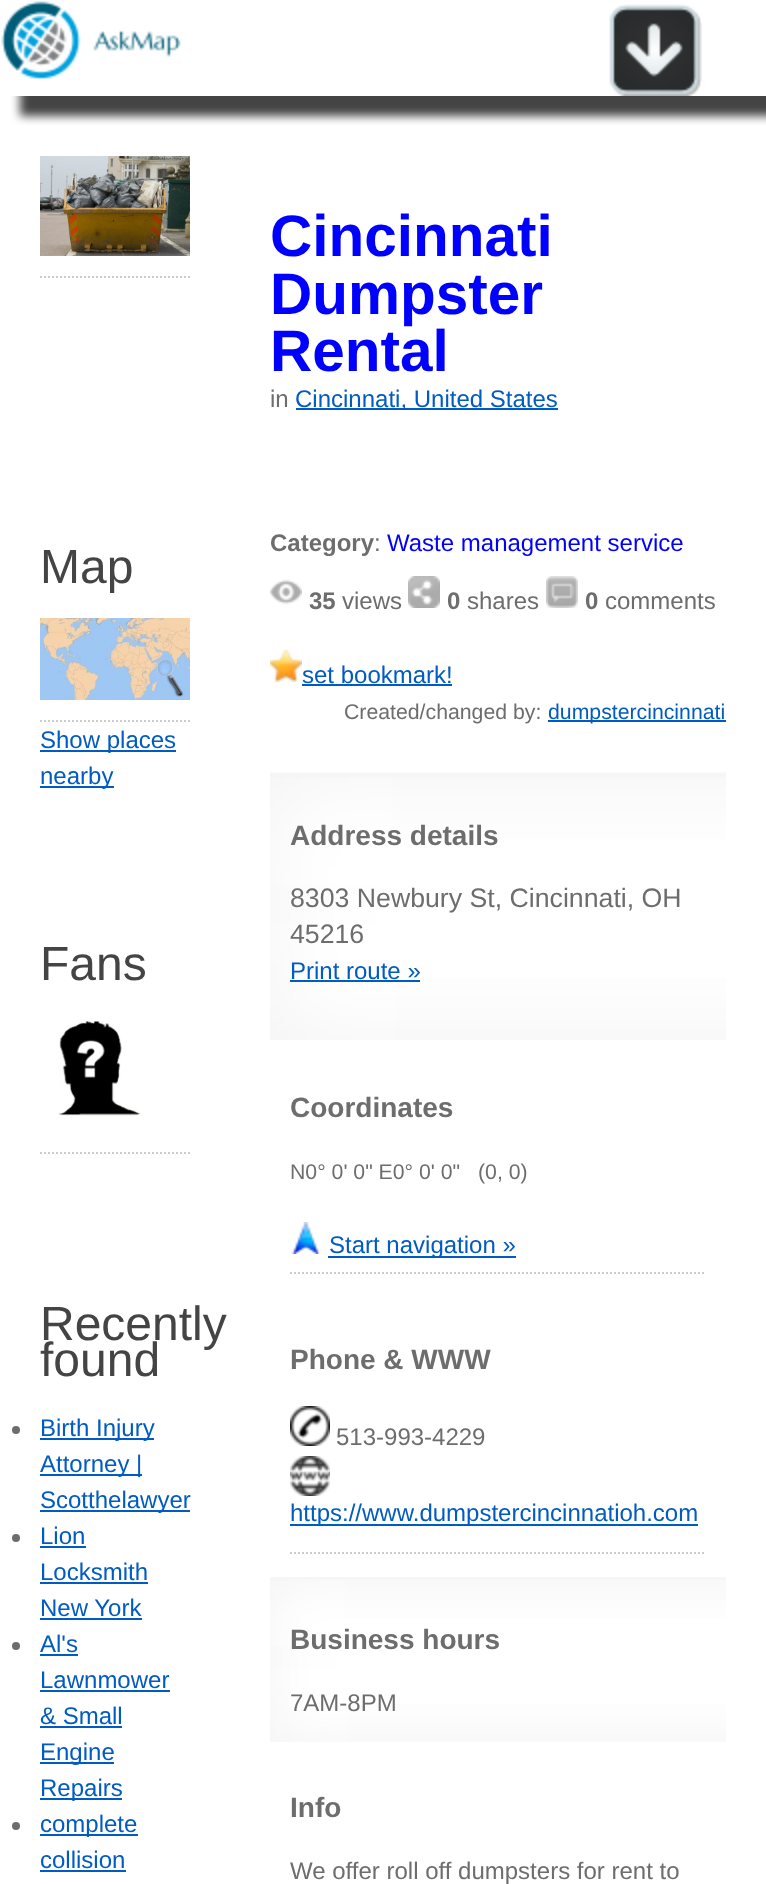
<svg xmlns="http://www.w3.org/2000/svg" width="766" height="1884">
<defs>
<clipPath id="clip1"><rect x="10" y="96" width="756" height="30"/></clipPath>
</defs>
<rect width="100%" height="100%" fill="#fff"/>
<g clip-path="url(#clip1)">
<rect x="20" y="20" width="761" height="96" fill="#444" filter="blur(5px)"/>
</g>
<image x="1" y="1" width="180" height="78" href="media/1.png"/>
<image x="609" y="4" width="93" height="92" href="media/2.png"/>
<image x="40" y="156" width="150" height="100" href="media/3.png"/>
<path d="M40 277h150" fill="none" stroke="#ccc" stroke-width="2" stroke-dasharray="2 2"/>
<text x="40" y="583" style="font-family:Liberation Sans;font-size:48px;fill:#444">Map</text>
<image x="40" y="618" width="150" height="82" href="media/4.png"/>
<path d="M40 721h150" fill="none" stroke="#ccc" stroke-width="2" stroke-dasharray="2 2"/>
<rect x="40" y="750" width="136" height="2" fill="#005bc2"/>
<text x="40" y="748" style="font-family:Liberation Sans;font-size:24px;fill:#005bc2">Show places</text>
<rect x="40" y="786" width="74" height="2" fill="#005bc2"/>
<text x="40" y="784" style="font-family:Liberation Sans;font-size:24px;fill:#005bc2">nearby</text>
<text x="40" y="980" style="font-family:Liberation Sans;font-size:48px;fill:#444">Fans</text>
<image x="58" y="1021" width="82" height="95" href="media/5.png"/>
<path d="M40 1153h150" fill="none" stroke="#ccc" stroke-width="2" stroke-dasharray="2 2"/>
<text x="40" y="1340" style="font-family:Liberation Sans;font-size:48px;fill:#444">Recently</text>
<text x="40" y="1376" style="font-family:Liberation Sans;font-size:48px;fill:#444">found</text>
<circle cx="16" cy="1430" r="4" fill="#6d6d6d"/>
<rect x="40" y="1438" width="114" height="2" fill="#005bc2"/>
<text x="40" y="1436" style="font-family:Liberation Sans;font-size:24px;fill:#005bc2">Birth Injury</text>
<rect x="40" y="1474" width="102" height="2" fill="#005bc2"/>
<text x="40" y="1472" style="font-family:Liberation Sans;font-size:24px;fill:#005bc2">Attorney |</text>
<rect x="40" y="1510" width="150" height="2" fill="#005bc2"/>
<text x="40" y="1508" style="font-family:Liberation Sans;font-size:24px;fill:#005bc2">Scotthelawyer</text>
<circle cx="16" cy="1538" r="4" fill="#6d6d6d"/>
<text x="40" y="1544" style="font-family:Liberation Sans;font-size:24px;fill:#005bc2">Lion</text>
<rect x="40" y="1546" width="46" height="2" fill="#005bc2"/>
<text x="40" y="1580" style="font-family:Liberation Sans;font-size:24px;fill:#005bc2">Locksmith</text>
<rect x="40" y="1582" width="108" height="2" fill="#005bc2"/>
<text x="40" y="1616" style="font-family:Liberation Sans;font-size:24px;fill:#005bc2">New York</text>
<rect x="40" y="1618" width="102" height="2" fill="#005bc2"/>
<circle cx="16" cy="1646" r="4" fill="#6d6d6d"/>
<text x="40" y="1652" style="font-family:Liberation Sans;font-size:24px;fill:#005bc2">Al's</text>
<rect x="40" y="1654" width="38" height="2" fill="#005bc2"/>
<text x="40" y="1688" style="font-family:Liberation Sans;font-size:24px;fill:#005bc2">Lawnmower</text>
<rect x="40" y="1690" width="130" height="2" fill="#005bc2"/>
<text x="40" y="1724" style="font-family:Liberation Sans;font-size:24px;fill:#005bc2">&amp; Small</text>
<rect x="40" y="1726" width="82" height="2" fill="#005bc2"/>
<rect x="40" y="1762" width="74" height="2" fill="#005bc2"/>
<text x="40" y="1760" style="font-family:Liberation Sans;font-size:24px;fill:#005bc2">Engine</text>
<rect x="40" y="1798" width="82" height="2" fill="#005bc2"/>
<text x="40" y="1796" style="font-family:Liberation Sans;font-size:24px;fill:#005bc2">Repairs</text>
<circle cx="16" cy="1826" r="4" fill="#6d6d6d"/>
<rect x="40" y="1834" width="98" height="2" fill="#005bc2"/>
<text x="40" y="1832" style="font-family:Liberation Sans;font-size:24px;fill:#005bc2">complete</text>
<text x="40" y="1868" style="font-family:Liberation Sans;font-size:24px;fill:#005bc2">collision</text>
<rect x="40" y="1870" width="86" height="2" fill="#005bc2"/>
<text x="270" y="256" style="font-family:Liberation Sans;font-size:58.5px;font-weight:bold;fill:#00f">Cincinnati</text>
<text x="270" y="314" style="font-family:Liberation Sans;font-size:58.5px;font-weight:bold;fill:#00f">Dumpster</text>
<text x="270" y="371" style="font-family:Liberation Sans;font-size:58.5px;font-weight:bold;fill:#00f">Rental</text>
<text x="270" y="407" style="font-family:Liberation Sans;font-size:24px;fill:#6d6d6d">in</text>
<rect x="296" y="408" width="262" height="2" fill="#005bc2"/>
<text x="295" y="407" style="font-family:Liberation Sans;font-size:24px;fill:#005bc2">Cincinnati, United States</text>
<text x="270" y="551" style="font-family:Liberation Sans;font-size:24px;font-weight:bold;fill:#6d6d6d">Category</text>
<text x="374" y="551" style="font-family:Liberation Sans;font-size:24px;fill:#6d6d6d">:</text>
<text x="387" y="551" style="font-family:Liberation Sans;font-size:24px;fill:#00f">Waste management service</text>
<image x="270" y="579" width="32" height="26" href="media/6.png"/>
<text x="309" y="609" style="font-family:Liberation Sans;font-size:24px;font-weight:bold;fill:#6d6d6d">35</text>
<text x="342" y="609" style="font-family:Liberation Sans;font-size:24px;fill:#6d6d6d">views</text>
<image x="408" y="576" width="32" height="32" href="media/7.png"/>
<text x="447" y="609" style="font-family:Liberation Sans;font-size:24px;font-weight:bold;fill:#6d6d6d">0</text>
<text x="467" y="609" style="font-family:Liberation Sans;font-size:24px;fill:#6d6d6d">shares</text>
<image x="546" y="576" width="32" height="32" href="media/8.png"/>
<text x="585" y="609" style="font-family:Liberation Sans;font-size:24px;font-weight:bold;fill:#6d6d6d">0</text>
<text x="605" y="609" style="font-family:Liberation Sans;font-size:24px;fill:#6d6d6d">comments</text>
<image x="270" y="650" width="32" height="32" href="media/9.png"/>
<text x="302" y="683" style="font-family:Liberation Sans;font-size:24px;fill:#005bc2">set bookmark!</text>
<rect x="302" y="684" width="150" height="2" fill="#005bc2"/>
<text x="344" y="719" style="font-family:Liberation Sans;font-size:21.25px;fill:#6d6d6d">Created/changed by:</text>
<rect x="548" y="720" width="178" height="2" fill="#005bc2"/>
<text x="548" y="719" style="font-family:Liberation Sans;font-size:21.25px;fill:#005bc2">dumpstercincinnati</text>
<image x="270" y="772" width="456" height="268" href="media/10.png"/>
<text x="290" y="845" style="font-family:Liberation Sans;font-size:28px;font-weight:bold;fill:#6d6d6d">Address details</text>
<text x="290" y="907" style="font-family:Liberation Sans;font-size:26.7px;fill:#6d6d6d">8303 Newbury St, Cincinnati, OH</text>
<text x="290" y="943" style="font-family:Liberation Sans;font-size:26.7px;fill:#6d6d6d">45216</text>
<text x="290" y="979" style="font-family:Liberation Sans;font-size:24px;fill:#005bc2">Print route »</text>
<rect x="290" y="980" width="130" height="2" fill="#005bc2"/>
<text x="290" y="1117" style="font-family:Liberation Sans;font-size:28px;font-weight:bold;fill:#6d6d6d">Coordinates</text>
<text x="290" y="1179" style="font-family:Liberation Sans;font-size:21.25px;fill:#6d6d6d">N0° 0' 0" E0° 0' 0"</text>
<text x="478" y="1179" style="font-family:Liberation Sans;font-size:21.25px;fill:#6d6d6d">(0, 0)</text>
<image x="291" y="1222" width="29" height="32" href="media/11.png"/>
<rect x="328" y="1256" width="188" height="2" fill="#005bc2"/>
<text x="329" y="1253" style="font-family:Liberation Sans;font-size:24px;fill:#005bc2">Start navigation »</text>
<path d="M290 1273h416" fill="none" stroke="#ccc" stroke-width="2" stroke-dasharray="2 2"/>
<text x="290" y="1369" style="font-family:Liberation Sans;font-size:28px;font-weight:bold;fill:#6d6d6d">Phone &amp; WWW</text>
<image x="290" y="1406" width="40" height="40" href="media/12.png"/>
<text x="336" y="1445" style="font-family:Liberation Sans;font-size:24px;fill:#6d6d6d">513-993-4229</text>
<image x="290" y="1456" width="40" height="40" href="media/13.png"/>
<rect x="290" y="1524" width="408" height="2" fill="#005bc2"/>
<text x="290" y="1521" style="font-family:Liberation Sans;font-size:24px;fill:#005bc2">https://www.dumpstercincinnatioh.com</text>
<path d="M290 1553h416" fill="none" stroke="#ccc" stroke-width="2" stroke-dasharray="2 2"/>
<image x="270" y="1577" width="456" height="165" href="media/14.png"/>
<text x="290" y="1649" style="font-family:Liberation Sans;font-size:28px;font-weight:bold;fill:#6d6d6d">Business hours</text>
<text x="290" y="1711" style="font-family:Liberation Sans;font-size:24px;fill:#6d6d6d">7AM-8PM</text>
<text x="290" y="1817" style="font-family:Liberation Sans;font-size:28px;font-weight:bold;fill:#6d6d6d">Info</text>
<text x="290" y="1879" style="font-family:Liberation Sans;font-size:24px;fill:#6d6d6d">We offer roll off dumpsters for rent to</text>
</svg>
